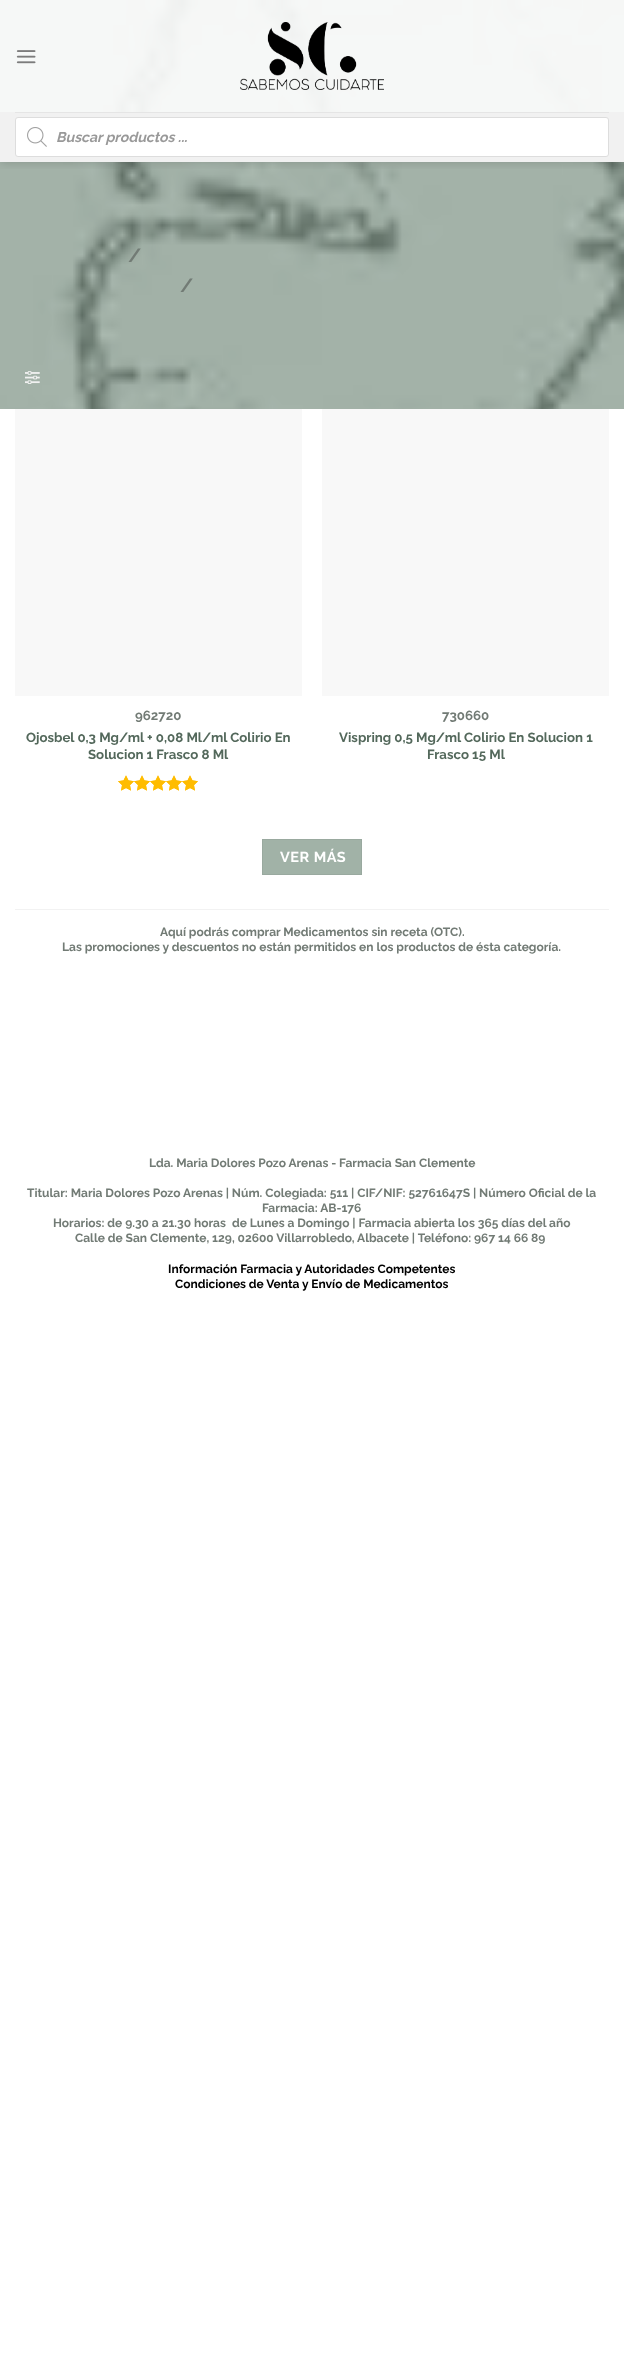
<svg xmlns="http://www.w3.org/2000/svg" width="624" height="2367">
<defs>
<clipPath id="clip1"><rect x="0" y="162" width="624" height="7"/></clipPath>
</defs>
<rect width="100%" height="100%" fill="#fff"/>
<image x="0" y="0" width="624" height="409" href="media/4.png"/>
<g clip-path="url(#clip1)">
<rect x="1" y="1" width="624" height="162" fill="#00000026" filter="blur(5px)"/>
</g>
<rect width="624" height="112" fill="#ffffffe6"/>
<image x="16" y="50" width="20" height="14" href="media/1.png"/>
<image x="240" y="22" width="144" height="68" href="media/2.png"/>
<rect y="112" width="624" height="50" fill="#f1f1f1"/>
<rect x="15" y="112" width="594" height="1" fill="#e5e5e5"/>
<rect x="15.5" y="117.5" width="593" height="39" rx="2.5" fill="#fff" stroke="#ddd"/>
<image x="27" y="127" width="20" height="20" href="media/3.png"/>
<text x="56" y="142" style="font-family:Raleway;font-size:14px;font-weight:bold;font-style:italic;fill:#999">Buscar productos ...</text>
<text x="128" y="262" style="font-family:Raleway;font-size:19px;font-weight:bold;fill:#727b75">/</text>
<text x="180" y="292" style="font-family:Raleway;font-size:19px;font-weight:bold;fill:#727b75">/</text>
<image x="25" y="371" width="15" height="13" href="media/5.png"/>
<rect x="15" y="409" width="287" height="287" fill="#f8f8f8"/>
<text x="135" y="720" style="font-family:Raleway;font-size:13.25px;font-weight:bold;fill:#727b75">962720</text>
<text x="26" y="742" style="font-family:Raleway;font-size:13.25px;font-weight:bold;fill:#53685b">Ojosbel 0,3 Mg/ml + 0,08 Ml/ml Colirio En</text>
<text x="88" y="759" style="font-family:Raleway;font-size:13.25px;font-weight:bold;fill:#53685b">Solucion 1 Frasco 8 Ml</text>
<image x="118" y="775" width="80" height="16" href="media/6.png"/>
<image x="118" y="775" width="80" height="16" href="media/7.png"/>
<rect x="322" y="409" width="287" height="287" fill="#f8f8f8"/>
<text x="442" y="720" style="font-family:Raleway;font-size:13.25px;font-weight:bold;fill:#727b75">730660</text>
<text x="339" y="742" style="font-family:Raleway;font-size:13.25px;font-weight:bold;fill:#53685b">Vispring 0,5 Mg/ml Colirio En Solucion 1</text>
<text x="427" y="759" style="font-family:Raleway;font-size:13.25px;font-weight:bold;fill:#53685b">Frasco 15 Ml</text>
<rect x="262.5" y="839.5" width="99" height="35" fill="#a1b2a7" stroke="#99a99f"/>
<text x="280" y="862" style="font-family:Raleway;font-size:14.5px;font-weight:bold;letter-spacing:0.5px;fill:#fff">VER MÁS</text>
<rect x="15" y="909" width="594" height="1" fill="#f2f2f2"/>
<text x="160" y="936" style="font-family:Raleway;font-size:12px;font-weight:bold;fill:#727b75">Aquí podrás comprar Medicamentos sin receta (OTC).</text>
<text x="62" y="951" style="font-family:Raleway;font-size:12px;font-weight:bold;fill:#727b75">Las promociones y descuentos no están permitidos en los productos de ésta categoría.</text>
<text x="149" y="1167" style="font-family:Raleway;font-size:12px;font-weight:bold;fill:#727b75">Lda. Maria Dolores Pozo Arenas - Farmacia San Clemente</text>
<text x="27" y="1197" style="font-family:Raleway;font-size:12px;font-weight:bold;fill:#727b75">Titular: Maria Dolores Pozo Arenas | Núm. Colegiada: 511 | CIF/NIF: 52761647S | Número Oficial de la</text>
<text x="262" y="1212" style="font-family:Raleway;font-size:12px;font-weight:bold;fill:#727b75">Farmacia: AB-176</text>
<text x="53" y="1227" style="font-family:Raleway;font-size:12px;font-weight:bold;fill:#727b75">Horarios: de 9.30 a 21.30 horas</text>
<text x="232" y="1227" style="font-family:Raleway;font-size:12px;font-weight:bold;fill:#727b75">de Lunes a Domingo | Farmacia abierta los 365 días del año</text>
<text x="75" y="1242" style="font-family:Raleway;font-size:12px;font-weight:bold;fill:#727b75">Calle de San Clemente, 129, 02600 Villarrobledo, Albacete | Teléfono: 967 14 66 89</text>
<text x="168" y="1273" style="font-family:Raleway;font-size:12px;font-weight:bold;fill:#000">Información Farmacia y Autoridades Competentes</text>
<text x="175" y="1288" style="font-family:Raleway;font-size:12px;font-weight:bold;fill:#000">Condiciones de Venta y Envío de Medicamentos</text>
</svg>
